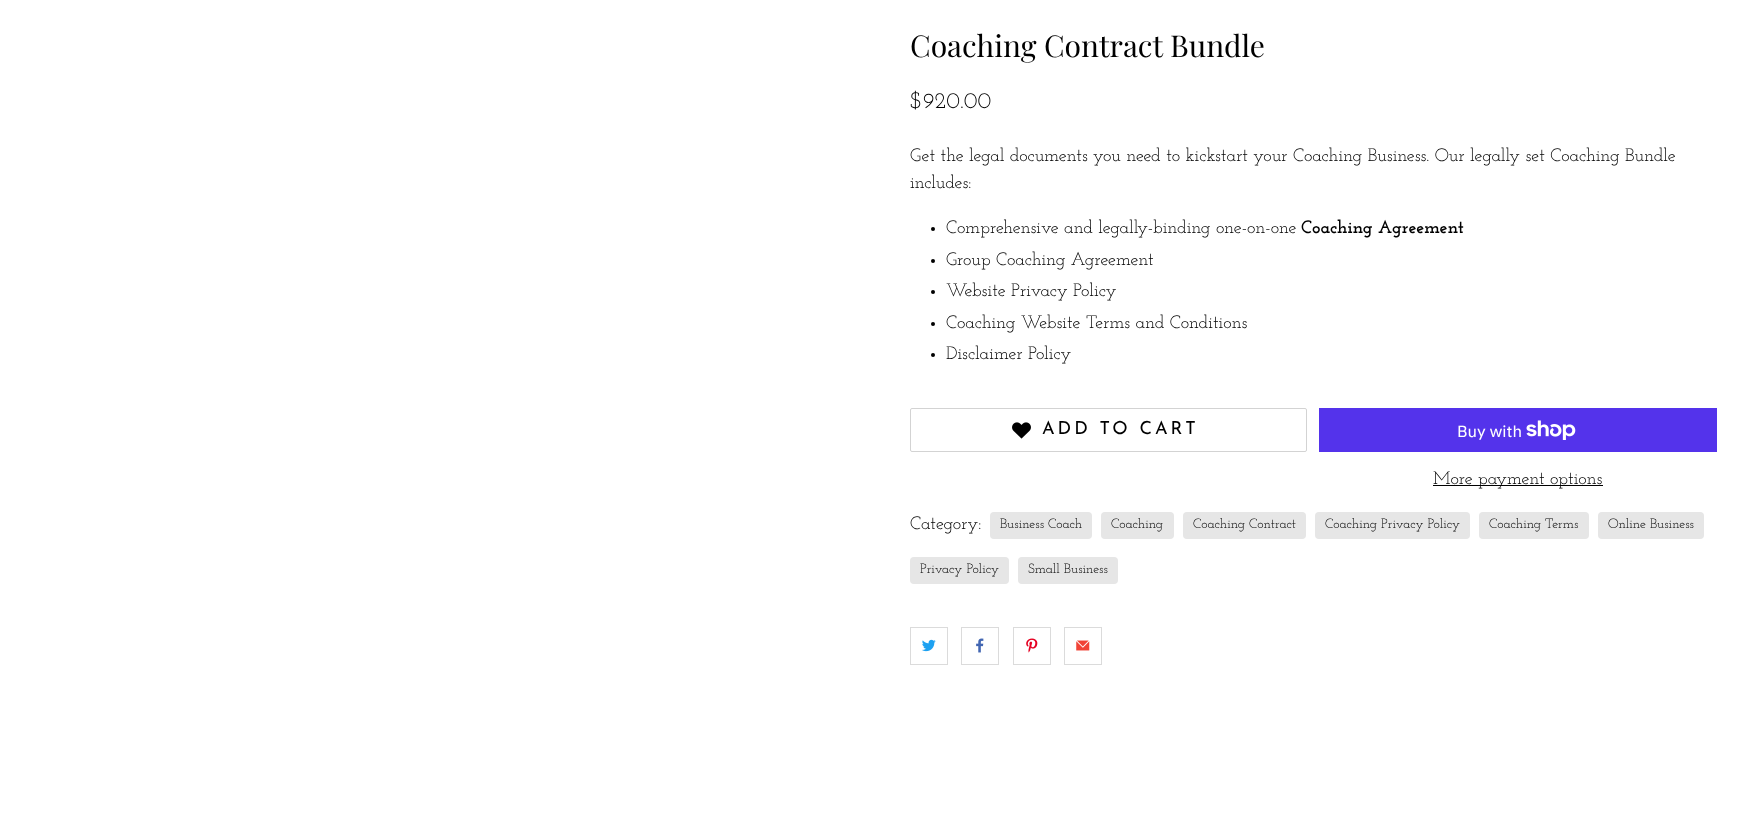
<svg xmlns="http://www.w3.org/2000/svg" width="1759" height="819">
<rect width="100%" height="100%" fill="#fff"/>
<text x="910" y="57" style="font-family:Playfair Display;font-size:30px;fill:#000">Coaching Contract Bundle</text>
<text x="910" y="108" style="font-family:Josefin Slab;font-size:22.5px;fill:#000">$920.00</text>
<text x="910" y="161" style="font-family:Josefin Slab;font-size:18px;fill:#000">Get the legal documents you need to kickstart your Coaching Business. Our legally set Coaching Bundle</text>
<text x="910" y="188" style="font-family:Josefin Slab;font-size:18px;fill:#000">includes:</text>
<circle cx="933" cy="229" r="2" fill="#000"/>
<text x="946" y="233" style="font-family:Josefin Slab;font-size:18px;fill:#000">Comprehensive and legally-binding one-on-one</text>
<text x="1301" y="233" style="font-family:Josefin Slab;font-size:18px;font-weight:bold;fill:#000">Coaching Agreement</text>
<circle cx="933" cy="261" r="2" fill="#000"/>
<text x="946" y="265" style="font-family:Josefin Slab;font-size:18px;fill:#000">Group Coaching Agreement</text>
<circle cx="933" cy="292" r="2" fill="#000"/>
<text x="946" y="296" style="font-family:Josefin Slab;font-size:18px;fill:#000">Website Privacy Policy</text>
<circle cx="933" cy="324" r="2" fill="#000"/>
<text x="946" y="328" style="font-family:Josefin Slab;font-size:18px;fill:#000">Coaching Website Terms and Conditions</text>
<circle cx="933" cy="355" r="2" fill="#000"/>
<text x="946" y="359" style="font-family:Josefin Slab;font-size:18px;fill:#000">Disclaimer Policy</text>
<rect x="910.5" y="408.5" width="396" height="43" rx="1.5" fill="none" stroke="#d3d3d3"/>
<image x="1012" y="422" width="19" height="17" href="media/1.png"/>
<text x="1042" y="434" style="font-family:Josefin Sans;font-size:18px;letter-spacing:3px;fill:#000">ADD TO CART</text>
<rect x="1319" y="408" width="398" height="44" fill="#5433eb"/>
<text x="1457" y="437" style="font-family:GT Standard;font-size:16px;fill:#fff">Buy with</text>
<image x="1526" y="420" width="50" height="20" href="media/2.png"/>
<rect x="1433" y="485" width="170" height="1" fill="#000"/>
<text x="1433" y="484" style="font-family:Josefin Slab;font-size:18px;fill:#000">More payment options</text>
<text x="910" y="529" style="font-family:Josefin Slab;font-size:18px;fill:#000">Category:</text>
<rect x="990" y="512" width="102" height="27" rx="4" fill="#e6e6e6"/>
<text x="1000" y="528" style="font-family:Josefin Slab;font-size:13.5px;fill:#000">Business Coach</text>
<rect x="1101" y="512" width="73" height="27" rx="4" fill="#e6e6e6"/>
<text x="1111" y="528" style="font-family:Josefin Slab;font-size:13.5px;fill:#000">Coaching</text>
<rect x="1183" y="512" width="123" height="27" rx="4" fill="#e6e6e6"/>
<text x="1193" y="528" style="font-family:Josefin Slab;font-size:13.5px;fill:#000">Coaching Contract</text>
<rect x="1315" y="512" width="155" height="27" rx="4" fill="#e6e6e6"/>
<text x="1325" y="528" style="font-family:Josefin Slab;font-size:13.5px;fill:#000">Coaching Privacy Policy</text>
<rect x="1479" y="512" width="110" height="27" rx="4" fill="#e6e6e6"/>
<text x="1489" y="528" style="font-family:Josefin Slab;font-size:13.5px;fill:#000">Coaching Terms</text>
<rect x="1598" y="512" width="106" height="27" rx="4" fill="#e6e6e6"/>
<text x="1608" y="528" style="font-family:Josefin Slab;font-size:13.5px;fill:#000">Online Business</text>
<rect x="910" y="557" width="99" height="27" rx="4" fill="#e6e6e6"/>
<text x="920" y="573" style="font-family:Josefin Slab;font-size:13.5px;fill:#000">Privacy Policy</text>
<rect x="1018" y="557" width="100" height="27" rx="4" fill="#e6e6e6"/>
<text x="1028" y="573" style="font-family:Josefin Slab;font-size:13.5px;fill:#000">Small Business</text>
<rect x="910.5" y="627.5" width="37" height="37" fill="none" stroke="#dbdbdb"/>
<image x="922" y="639" width="14" height="13" href="media/3.png"/>
<rect x="961.5" y="627.5" width="37" height="37" fill="none" stroke="#dbdbdb"/>
<image x="976" y="638" width="8" height="15" href="media/4.png"/>
<rect x="1013.5" y="627.5" width="37" height="37" fill="none" stroke="#dbdbdb"/>
<image x="1026" y="638" width="12" height="15" href="media/5.png"/>
<rect x="1064.5" y="627.5" width="37" height="37" fill="none" stroke="#dbdbdb"/>
<image x="1076" y="640" width="14" height="11" href="media/6.png"/>
</svg>
